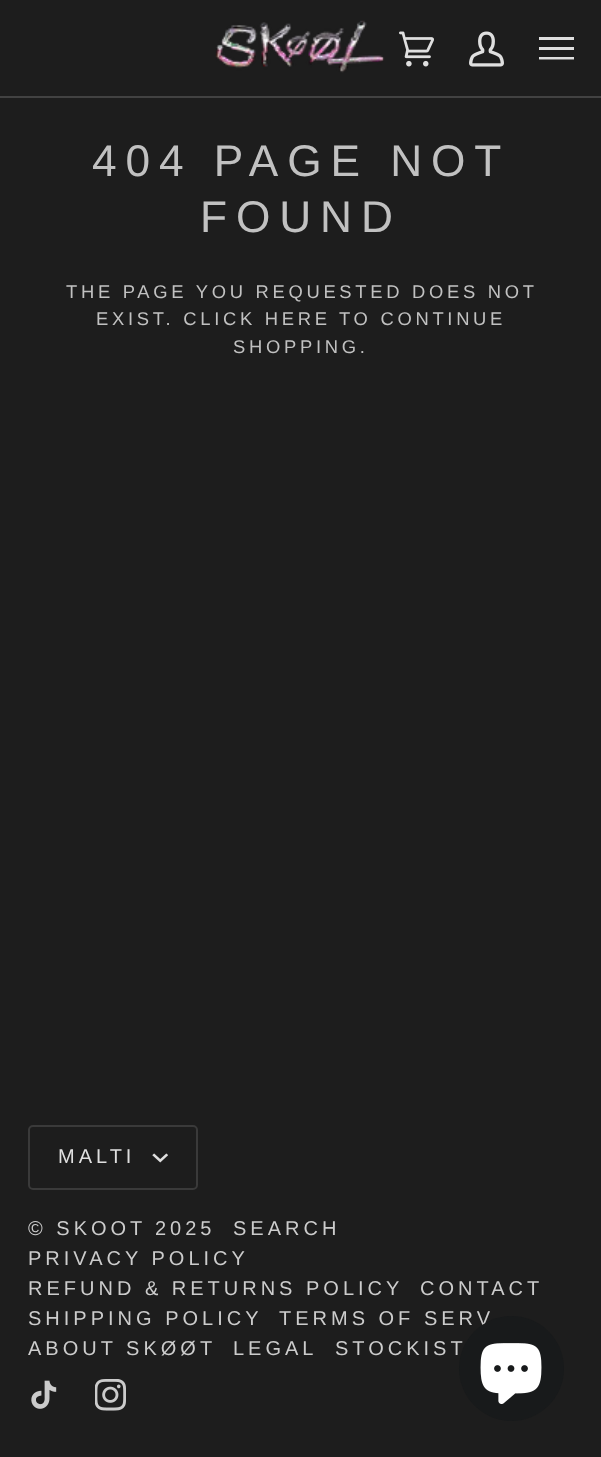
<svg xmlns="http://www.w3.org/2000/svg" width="601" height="1457">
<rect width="100%" height="100%" fill="#1d1d1d"/>
<rect y="96" width="601" height="2" fill="#424242"/>
<image x="215" y="20" width="170" height="53" href="media/1.png"/>
<image x="399" y="31" width="35" height="36" href="media/2.png"/>
<image x="469" y="31" width="35" height="36" href="media/3.png"/>
<path d="M539 37h35v3h-35zm0 10h35v3h-35zm0 10h35v2.5h-35z" fill="#dfdfdf"/>
<text x="92" y="176" style="font-family:Liberation Sans;font-size:44.25px;letter-spacing:8.9px;fill:#c1c1c1">404 PAGE NOT</text>
<text x="200" y="232" style="font-family:Liberation Sans;font-size:44.25px;letter-spacing:8.9px;fill:#c1c1c1">FOUND</text>
<text x="66" y="298" style="font-family:Liberation Sans;font-size:18.4px;letter-spacing:3.7px;fill:#c1c1c1">THE PAGE YOU REQUESTED DOES NOT</text>
<text x="96" y="325" style="font-family:Liberation Sans;font-size:18.4px;letter-spacing:3.7px;fill:#c1c1c1">EXIST. CLICK HERE</text>
<text x="339" y="325" style="font-family:Liberation Sans;font-size:18.4px;letter-spacing:3.7px;fill:#c1c1c1">TO CONTINUE</text>
<text x="233" y="353" style="font-family:Liberation Sans;font-size:18.4px;letter-spacing:3.7px;fill:#c1c1c1">SHOPPING.</text>
<rect x="29" y="1126" width="168" height="63" rx="4" fill="none" stroke="#3a3a3a" stroke-width="2"/>
<text x="58" y="1163" style="font-family:Liberation Sans;font-size:20px;letter-spacing:4px;fill:#dfdfdf">MALTI</text>
<image x="152" y="1153" width="16" height="10" href="media/4.png"/>
<text x="28" y="1235" style="font-family:Liberation Sans;font-size:20px;letter-spacing:4px;fill:#ccc">© SKOOT</text>
<text x="155" y="1235" style="font-family:Liberation Sans;font-size:20px;letter-spacing:4px;fill:#ccc">2025</text>
<text x="233" y="1235" style="font-family:Liberation Sans;font-size:20px;letter-spacing:4px;fill:#ccc">SEARCH</text>
<text x="28" y="1265" style="font-family:Liberation Sans;font-size:20px;letter-spacing:4px;fill:#ccc">PRIVACY POLICY</text>
<text x="28" y="1295" style="font-family:Liberation Sans;font-size:20px;letter-spacing:4px;fill:#ccc">REFUND &amp; RETURNS POLICY</text>
<text x="420" y="1295" style="font-family:Liberation Sans;font-size:20px;letter-spacing:4px;fill:#ccc">CONTACT</text>
<text x="28" y="1325" style="font-family:Liberation Sans;font-size:20px;letter-spacing:4px;fill:#ccc">SHIPPING POLICY</text>
<text x="279" y="1325" style="font-family:Liberation Sans;font-size:20px;letter-spacing:4px;fill:#ccc">TERMS OF SERV</text>
<text x="28" y="1355" style="font-family:Liberation Sans;font-size:20px;letter-spacing:4px;fill:#ccc">ABOUT SKØØT</text>
<text x="233" y="1355" style="font-family:Liberation Sans;font-size:20px;letter-spacing:4px;fill:#ccc">LEGAL</text>
<text x="335" y="1355" style="font-family:Liberation Sans;font-size:20px;letter-spacing:4px;fill:#ccc">STOCKIST</text>
<image x="31" y="1380" width="26" height="29" href="media/5.png"/>
<image x="95" y="1379" width="31" height="32" href="media/6.png"/>
<circle cx="511.5" cy="1368.5" r="52.5" fill="#181a1b"/>
<image x="480" y="1343" width="62" height="61" href="media/7.png"/>
</svg>
